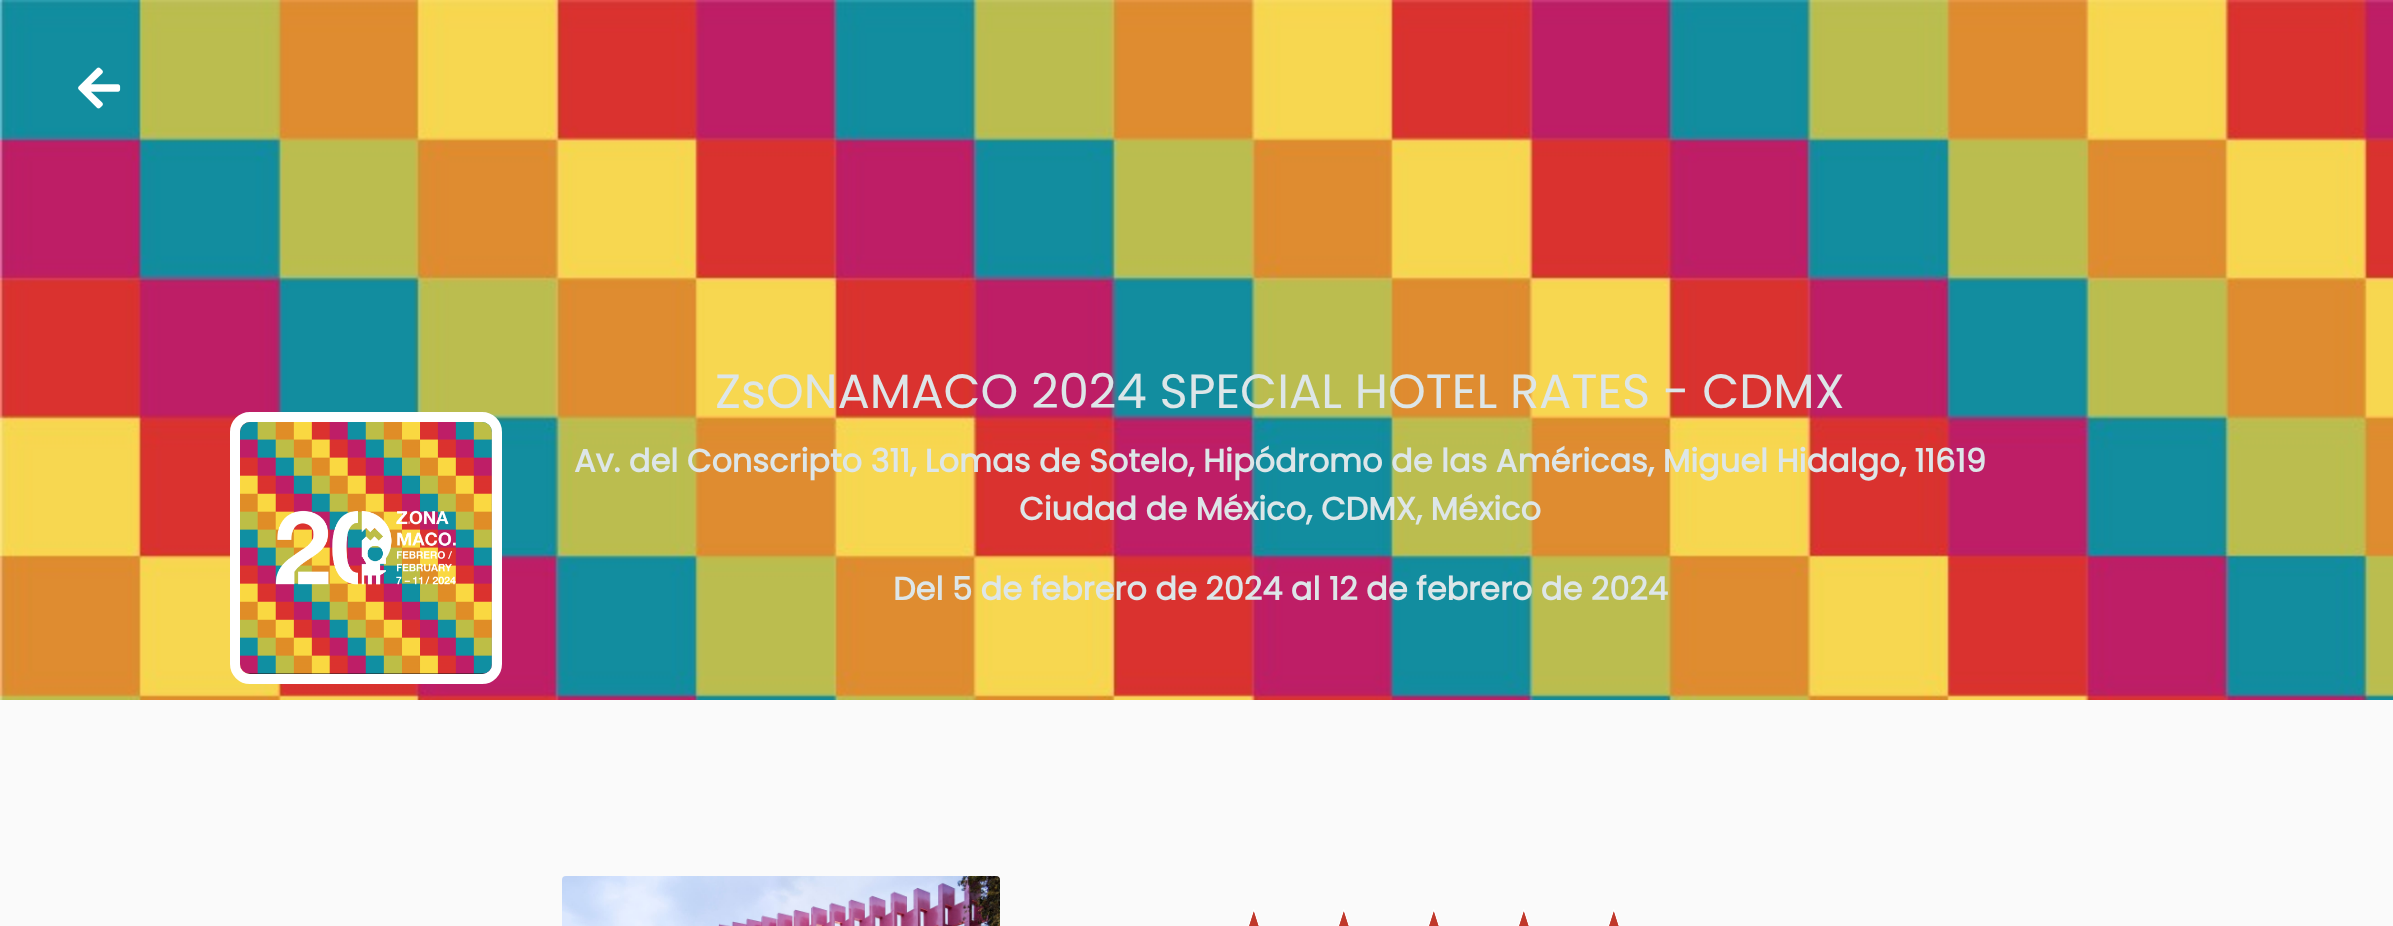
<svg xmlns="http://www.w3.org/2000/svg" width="2393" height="926">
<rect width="100%" height="100%" fill="#fafafa"/>
<image x="0" y="0" width="2393" height="700" href="media/1.png"/>
<image x="78" y="67" width="43" height="42" href="media/2.png"/>
<rect x="235" y="417" width="262" height="262" rx="15" fill="none" stroke="#fff" stroke-width="10"/>
<image x="240" y="422" width="252" height="252" href="media/3.png"/>
<text x="715" y="408" style="font-family:Poppins;font-size:48px;fill:#dde6e8">ZsONAMACO 2024 SPECIAL HOTEL RATES - CDMX</text>
<text x="574" y="472" style="font-family:Poppins;font-size:32px;font-weight:bold;fill:#dde6e8">Av. del Conscripto 311, Lomas de Sotelo, Hipódromo de las Américas, Miguel Hidalgo, 11619</text>
<text x="1019" y="520" style="font-family:Poppins;font-size:32px;font-weight:bold;fill:#dde6e8">Ciudad de México, CDMX, México</text>
<text x="893" y="600" style="font-family:Poppins;font-size:32px;font-weight:bold;fill:#dde6e8">Del 5 de febrero de 2024 al 12 de febrero de 2024</text>
<image x="562" y="876" width="438" height="50" href="media/4.png"/>
<image x="1248" y="909" width="11" height="17" href="media/5.png"/>
<image x="1338" y="909" width="11" height="17" href="media/6.png"/>
<image x="1428" y="909" width="11" height="17" href="media/7.png"/>
<image x="1518" y="909" width="11" height="17" href="media/8.png"/>
<image x="1608" y="909" width="11" height="17" href="media/6.png"/>
</svg>
